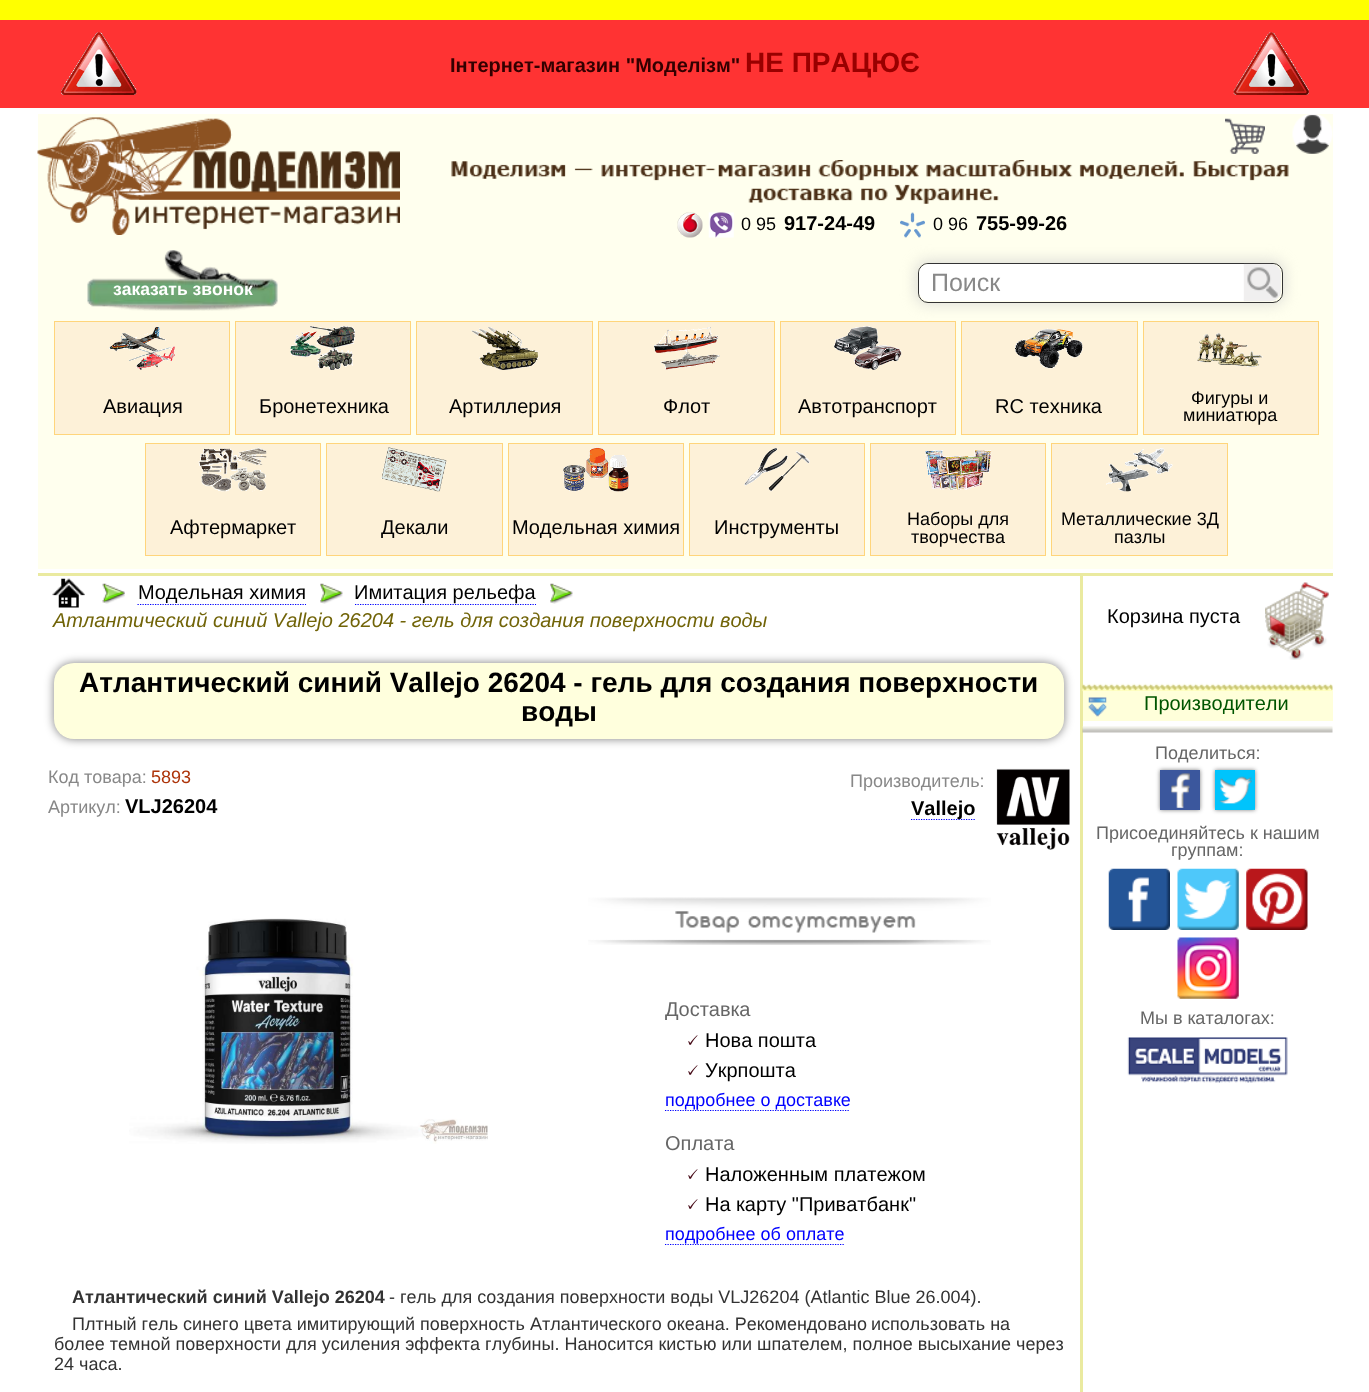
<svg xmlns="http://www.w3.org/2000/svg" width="1369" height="1392">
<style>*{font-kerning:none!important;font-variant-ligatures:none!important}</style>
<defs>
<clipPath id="clip1"><path d="M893 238h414v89h-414zm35 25h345c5.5 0 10 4.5 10 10v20c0 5.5-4.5 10-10 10h-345c-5.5 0-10-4.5-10-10v-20c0-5.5 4.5-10 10-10z" clip-rule="evenodd"/></clipPath>
</defs>
<rect width="100%" height="100%" fill="#fff"/>
<rect width="1369" height="20" fill="#ff0"/>
<rect y="20" width="1369" height="88" fill="#f33"/>
<image x="61" y="32" width="76" height="63" href="media/1.png"/>
<text x="450" y="72" style="font-family:Liberation Sans;font-size:20px;font-weight:bold;fill:#300">Інтернет-магазин "Моделізм"</text>
<text x="745" y="72" style="font-family:Liberation Sans;font-size:28px;font-weight:bold;fill:#900">НЕ ПРАЦЮЄ</text>
<image x="1233" y="32" width="76" height="63" href="media/2.png"/>
<rect x="38" y="114" width="1295" height="455" fill="#ffe"/>
<image x="37" y="117" width="363" height="118" href="media/3.png"/>
<image x="1225" y="118" width="40" height="36" href="media/4.png"/>
<image x="1292" y="114" width="41" height="40" href="media/5.png"/>
<image x="451" y="161" width="142" height="18" href="media/6.png"/>
<image x="601" y="164" width="115" height="17" href="media/7.png"/>
<image x="718" y="164" width="93" height="13" href="media/8.png"/>
<image x="818" y="160" width="101" height="21" href="media/9.png"/>
<image x="926" y="160" width="147" height="17" href="media/10.png"/>
<image x="1079" y="161" width="105" height="18" href="media/11.png"/>
<image x="1193" y="161" width="96" height="20" href="media/12.png"/>
<image x="748" y="188" width="105" height="15" href="media/13.png"/>
<image x="861" y="184" width="138" height="20" href="media/14.png"/>
<image x="677" y="212" width="26" height="26" href="media/15.png"/>
<image x="708" y="212" width="26" height="26" href="media/16.png"/>
<text x="741" y="230" style="font-family:Liberation Sans;font-size:18px;fill:#000">0 95</text>
<text x="784" y="230" style="font-family:Liberation Sans;font-size:20px;font-weight:bold;fill:#000">917-24-49</text>
<image x="900" y="212" width="25" height="26" href="media/17.png"/>
<text x="933" y="230" style="font-family:Liberation Sans;font-size:18px;fill:#000">0 96</text>
<text x="976" y="230" style="font-family:Liberation Sans;font-size:20px;font-weight:bold;fill:#000">755-99-26</text>
<image x="87" y="250" width="191" height="61" href="media/18.png"/>
<text x="113" y="295" style="font-family:Liberation Sans;font-size:17.5px;font-weight:bold;fill:#fff">заказать звонок</text>
<g clip-path="url(#clip1)">
<rect x="915" y="260" width="370" height="45" rx="13" fill="#cccccc99" filter="blur(7px)"/>
</g>
<rect x="918.5" y="263.5" width="364" height="39" rx="9.5" fill="none" stroke="#333"/>
<path d="M929 264h315v37h-315c-5.5 0-10-4.5-10-10v-17c0-5.5 4.5-10 10-10z" fill="#fff"/>
<text x="931" y="291" style="font-family:Liberation Sans;font-size:25px;fill:#888">Поиск</text>
<path d="M1244 264h27c5.5 0 10 4.5 10 10v17c0 5.5-4.5 10-10 10h-27z" fill="#f0efef"/>
<image x="1243" y="263" width="35" height="39" href="media/19.png"/>
<rect x="54.5" y="321.5" width="175" height="113" fill="#fdf1d8" stroke="#ffd57b"/>
<image x="109" y="327" width="66" height="43" href="media/20.png"/>
<text x="103" y="413" style="font-family:Liberation Sans;font-size:20px;fill:#000">Авиация</text>
<rect x="235.5" y="321.5" width="175" height="113" fill="#fdf1d8" stroke="#ffd57b"/>
<image x="290" y="326" width="65" height="44" href="media/21.png"/>
<text x="259" y="413" style="font-family:Liberation Sans;font-size:20px;fill:#000">Бронетехника</text>
<rect x="416.5" y="321.5" width="176" height="113" fill="#fdf1d8" stroke="#ffd57b"/>
<image x="471" y="327" width="68" height="43" href="media/22.png"/>
<text x="449" y="413" style="font-family:Liberation Sans;font-size:20px;fill:#000">Артиллерия</text>
<rect x="598.5" y="321.5" width="176" height="113" fill="#fdf1d8" stroke="#ffd57b"/>
<image x="654" y="327" width="66" height="43" href="media/23.png"/>
<text x="663" y="413" style="font-family:Liberation Sans;font-size:20px;fill:#000">Флот</text>
<rect x="780.5" y="321.5" width="175" height="113" fill="#fdf1d8" stroke="#ffd57b"/>
<image x="833" y="326" width="69" height="44" href="media/24.png"/>
<text x="798" y="413" style="font-family:Liberation Sans;font-size:20px;fill:#000">Автотранспорт</text>
<rect x="961.5" y="321.5" width="176" height="113" fill="#fdf1d8" stroke="#ffd57b"/>
<image x="1015" y="328" width="68" height="41" href="media/25.png"/>
<text x="995" y="413" style="font-family:Liberation Sans;font-size:20px;fill:#000">RC техника</text>
<rect x="1143.5" y="321.5" width="175" height="113" fill="#fdf1d8" stroke="#ffd57b"/>
<image x="1197" y="333" width="66" height="34" href="media/26.png"/>
<text x="1191" y="404" style="font-family:Liberation Sans;font-size:18px;fill:#000">Фигуры и</text>
<text x="1183" y="421" style="font-family:Liberation Sans;font-size:18px;fill:#000">миниатюра</text>
<rect x="145.5" y="443.5" width="175" height="112" fill="#fdf1d8" stroke="#ffd57b"/>
<image x="198" y="447" width="69" height="45" href="media/27.png"/>
<text x="170" y="534" style="font-family:Liberation Sans;font-size:20px;fill:#000">Афтермаркет</text>
<rect x="326.5" y="443.5" width="176" height="112" fill="#fdf1d8" stroke="#ffd57b"/>
<image x="381" y="447" width="66" height="45" href="media/28.png"/>
<text x="381" y="534" style="font-family:Liberation Sans;font-size:20px;fill:#000">Декали</text>
<rect x="508.5" y="443.5" width="175" height="112" fill="#fdf1d8" stroke="#ffd57b"/>
<image x="563" y="447" width="66" height="45" href="media/29.png"/>
<text x="512" y="534" style="font-family:Liberation Sans;font-size:20px;fill:#000">Модельная химия</text>
<rect x="689.5" y="443.5" width="175" height="112" fill="#fdf1d8" stroke="#ffd57b"/>
<image x="744" y="448" width="66" height="44" href="media/30.png"/>
<text x="714" y="534" style="font-family:Liberation Sans;font-size:20px;fill:#000">Инструменты</text>
<rect x="870.5" y="443.5" width="175" height="112" fill="#fdf1d8" stroke="#ffd57b"/>
<image x="925" y="449" width="67" height="41" href="media/31.png"/>
<text x="907" y="525" style="font-family:Liberation Sans;font-size:18px;fill:#000">Наборы для</text>
<text x="911" y="543" style="font-family:Liberation Sans;font-size:18px;fill:#000">творчества</text>
<rect x="1051.5" y="443.5" width="176" height="112" fill="#fdf1d8" stroke="#ffd57b"/>
<image x="1106" y="448" width="67" height="44" href="media/32.png"/>
<text x="1061" y="525" style="font-family:Liberation Sans;font-size:18px;fill:#000">Металлические 3Д</text>
<text x="1114" y="543" style="font-family:Liberation Sans;font-size:18px;fill:#000">пазлы</text>
<rect x="38" y="573" width="1295" height="3" fill="#eaeaa0"/>
<image x="52" y="578" width="33" height="30" href="media/33.png"/>
<image x="102" y="583" width="23" height="21" href="media/34.png"/>
<text x="138" y="599" style="font-family:Liberation Sans;font-size:20px;fill:#000">Модельная химия</text>
<path d="M137.5 604.5h168.5" fill="none" stroke="#00f" stroke-width="1.2" stroke-dasharray="1.25 1.25"/>
<image x="320" y="583" width="23" height="21" href="media/35.png"/>
<path d="M355 604.5h181" fill="none" stroke="#00f" stroke-width="1.2" stroke-dasharray="1.25 1.25"/>
<text x="354" y="599" style="font-family:Liberation Sans;font-size:20px;fill:#000">Имитация рельефа</text>
<image x="550" y="583" width="23" height="21" href="media/36.png"/>
<text x="53" y="627" style="font-family:Liberation Sans;font-size:20px;font-style:italic;fill:#716408">Атлантический синий Vallejo 26204 - гель для создания поверхности воды</text>
<rect x="54" y="663" width="1010" height="76" rx="20" fill="#00000080" filter="blur(5px)"/>
<rect x="54" y="663" width="1010" height="76" rx="20" fill="#ffd"/>
<text x="79" y="692" style="font-family:Liberation Sans;font-size:28px;font-weight:bold;fill:#000">Атлантический синий Vallejo 26204 - гель для создания поверхности</text>
<text x="521" y="721" style="font-family:Liberation Sans;font-size:28px;font-weight:bold;fill:#000">воды</text>
<text x="48" y="783" style="font-family:Liberation Sans;font-size:18px;fill:#888">Код товара:</text>
<text x="151" y="783" style="font-family:Liberation Sans;font-size:18px;fill:#ad340a">5893</text>
<text x="48" y="813" style="font-family:Liberation Sans;font-size:18px;fill:#888">Артикул:</text>
<text x="125" y="813" style="font-family:Liberation Sans;font-size:20px;font-weight:bold;fill:#000">VLJ26204</text>
<text x="850" y="787" style="font-family:Liberation Sans;font-size:18px;fill:#888">Производитель:</text>
<path d="M911 819.5h64" fill="none" stroke="#00f" stroke-width="1.2" stroke-dasharray="1.25 1.25"/>
<text x="911" y="815" style="font-family:Liberation Sans;font-size:20px;font-weight:bold;fill:#000">Vallejo</text>
<image x="996" y="768" width="74" height="82" href="media/37.png"/>
<image x="129" y="918" width="359" height="226" href="media/38.png"/>
<image x="588" y="897" width="403" height="48" href="media/39.png"/>
<image x="675" y="911" width="241" height="22" href="media/40.png"/>
<text x="665" y="1016" style="font-family:Liberation Sans;font-size:20px;fill:#666">Доставка</text>
<text x="685" y="1047" style="font-family:FreeSerif;font-size:20px;fill:#430613">🗸</text>
<text x="705" y="1047" style="font-family:Liberation Sans;font-size:20px;fill:#000">Нова пошта</text>
<text x="685" y="1077" style="font-family:FreeSerif;font-size:20px;fill:#430613">🗸</text>
<text x="705" y="1077" style="font-family:Liberation Sans;font-size:20px;fill:#000">Укрпошта</text>
<path d="M665 1110.5h185" fill="none" stroke="#00f" stroke-width="1.2" stroke-dasharray="1.25 1.25"/>
<text x="665" y="1106" style="font-family:Liberation Sans;font-size:18px;fill:#00f">подробнее о доставке</text>
<text x="665" y="1150" style="font-family:Liberation Sans;font-size:20px;fill:#666">Оплата</text>
<text x="685" y="1181" style="font-family:FreeSerif;font-size:20px;fill:#430613">🗸</text>
<text x="705" y="1181" style="font-family:Liberation Sans;font-size:20px;fill:#000">Наложенным платежом</text>
<text x="685" y="1211" style="font-family:FreeSerif;font-size:20px;fill:#430613">🗸</text>
<text x="705" y="1211" style="font-family:Liberation Sans;font-size:20px;fill:#000">На карту "Приватбанк"</text>
<path d="M665 1244.5h179" fill="none" stroke="#00f" stroke-width="1.2" stroke-dasharray="1.25 1.25"/>
<text x="665" y="1240" style="font-family:Liberation Sans;font-size:18px;fill:#00f">подробнее об оплате</text>
<text x="72" y="1303" style="font-family:Liberation Sans;font-size:18px;font-weight:bold;fill:#333">Атлантический синий Vallejo 26204</text>
<text x="389" y="1303" style="font-family:Liberation Sans;font-size:18px;fill:#333">- гель для создания поверхности воды VLJ26204 (Atlantic Blue 26.004).</text>
<text x="72" y="1330" style="font-family:Liberation Sans;font-size:18px;fill:#333">Плтный гель синего цвета имитирующий поверхность Атлантического океана. Рекомендовано</text>
<text x="871" y="1330" style="font-family:Liberation Sans;font-size:18px;fill:#333">использовать на</text>
<text x="54" y="1350" style="font-family:Liberation Sans;font-size:18px;fill:#333">более темной поверхности для усиления эффекта глубины. Наносится кистью или шпателем, полное высыхание через</text>
<text x="54" y="1370" style="font-family:Liberation Sans;font-size:18px;fill:#333">24 часа.</text>
<rect x="1080" y="575" width="3" height="817" fill="#eaeaa0"/>
<text x="1107" y="623" style="font-family:Liberation Sans;font-size:20px;fill:#000">Корзина пуста</text>
<image x="1265" y="582" width="64" height="78" href="media/41.png"/>
<image x="1082" y="683" width="251" height="9" href="media/42.png"/>
<rect x="1083" y="691" width="250" height="30" fill="#ffffda"/>
<image x="1088" y="697" width="19" height="20" href="media/43.png"/>
<text x="1144" y="710" style="font-family:Liberation Sans;font-size:20px;fill:#050">Производители</text>
<image x="1082" y="726" width="251" height="7" href="media/44.png"/>
<text x="1155" y="759" style="font-family:Liberation Sans;font-size:18px;fill:#666">Поделиться:</text>
<rect x="1160" y="770" width="40" height="40" fill="#00000080" filter="blur(2px)"/>
<rect x="1160" y="770" width="40" height="40" fill="#3b579d"/>
<image x="1171" y="773" width="19" height="35" href="media/45.png"/>
<rect x="1215" y="770" width="40" height="40" fill="#00000080" filter="blur(2px)"/>
<rect x="1215" y="770" width="40" height="40" fill="#00c4fc"/>
<image x="1219" y="776" width="36" height="34" href="media/46.png"/>
<text x="1096" y="839" style="font-family:Liberation Sans;font-size:18px;fill:#666">Присоединяйтесь к нашим</text>
<text x="1171" y="856" style="font-family:Liberation Sans;font-size:18px;fill:#666">группам:</text>
<image x="1108" y="868" width="62" height="62" href="media/47.png"/>
<image x="1177" y="868" width="62" height="62" href="media/48.png"/>
<image x="1246" y="868" width="62" height="62" href="media/49.png"/>
<image x="1177" y="937" width="62" height="62" href="media/50.png"/>
<text x="1140" y="1024" style="font-family:Liberation Sans;font-size:18px;fill:#666">Мы в каталогах:</text>
<image x="1127" y="1037" width="161" height="46" href="media/51.png"/>
</svg>
